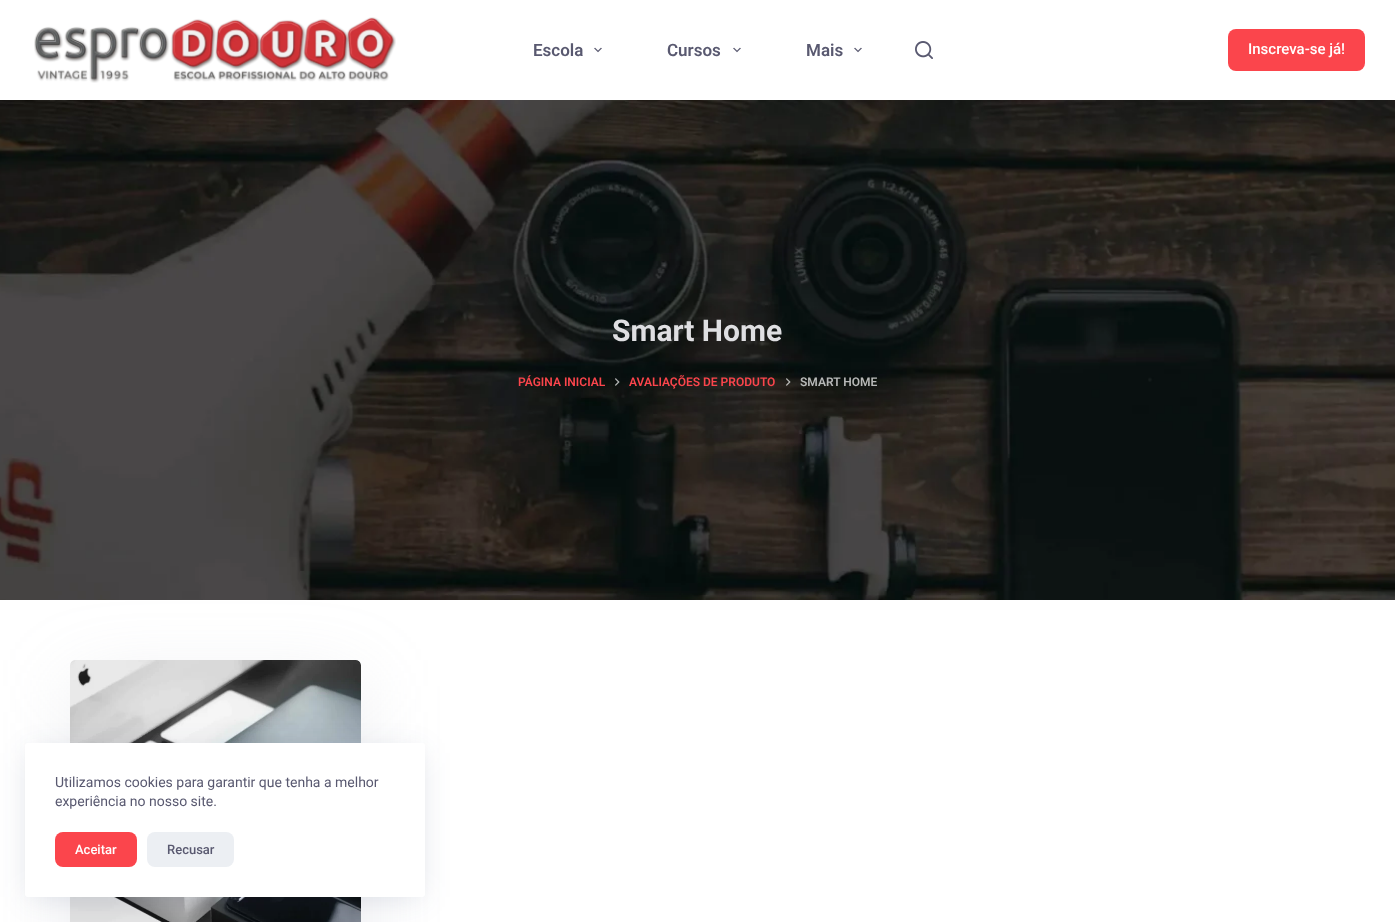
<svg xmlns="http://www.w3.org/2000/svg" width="1395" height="922">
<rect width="100%" height="100%" fill="#fff"/>
<image x="34" y="17" width="362" height="66" href="media/1.png"/>
<text x="533" y="56" style="font-family:Roboto;font-size:17px;font-weight:600;fill:#595970">Escola</text>
<image x="594" y="47" width="8" height="6" href="media/2.png"/>
<text x="667" y="56" style="font-family:Roboto;font-size:17px;font-weight:600;fill:#595970">Cursos</text>
<image x="733" y="47" width="8" height="6" href="media/2.png"/>
<text x="806" y="56" style="font-family:Roboto;font-size:17px;font-weight:600;fill:#595970">Mais</text>
<image x="854" y="47" width="8" height="6" href="media/2.png"/>
<image x="915" y="41" width="18" height="18" href="media/3.png"/>
<rect x="1228" y="29" width="137" height="42" rx="8" fill="#fb454c"/>
<text x="1248" y="54" style="font-family:Roboto;font-size:15px;font-weight:500;fill:#fff">Inscreva-se já!</text>
<rect x="76" y="686" width="279" height="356" fill="#aaafbc40" filter="blur(40px)"/>
<image x="0" y="100" width="1395" height="500" href="media/4.png"/>
<text x="612" y="341" style="font-family:Roboto;font-size:30px;font-weight:bold;fill:#dfdfe2">Smart Home</text>
<text x="518" y="386" style="font-family:Roboto;font-size:12px;font-weight:600;fill:#fb454c">PÁGINA INICIAL</text>
<image x="615" y="378" width="5" height="8" href="media/5.png"/>
<text x="629" y="386" style="font-family:Roboto;font-size:12px;font-weight:600;fill:#fb454c">AVALIAÇÕES DE PRODUTO</text>
<image x="786" y="378" width="5" height="8" href="media/6.png"/>
<text x="800" y="386" style="font-family:Roboto;font-size:12px;font-weight:600;fill:#b8b9b8">SMART HOME</text>
<image x="70" y="660" width="291" height="262" href="media/7.png"/>
<rect x="30" y="753" width="390" height="144" fill="#22386526" filter="blur(15px)"/>
<rect x="25" y="743" width="400" height="154" rx="3" fill="#fff"/>
<text x="55" y="787" style="font-family:Roboto;font-size:14px;fill:#595970">Utilizamos cookies para garantir que tenha a melhor</text>
<text x="55" y="806" style="font-family:Roboto;font-size:14px;fill:#595970">experiência no nosso site.</text>
<rect x="55" y="832" width="82" height="35" rx="8" fill="#fb454c"/>
<text x="75" y="854" style="font-family:Roboto;font-size:13px;font-weight:500;fill:#fff">Aceitar</text>
<rect x="147" y="832" width="87" height="35" rx="8" fill="#eceff3"/>
<text x="167" y="854" style="font-family:Roboto;font-size:13px;font-weight:500;fill:#595970">Recusar</text>
</svg>
